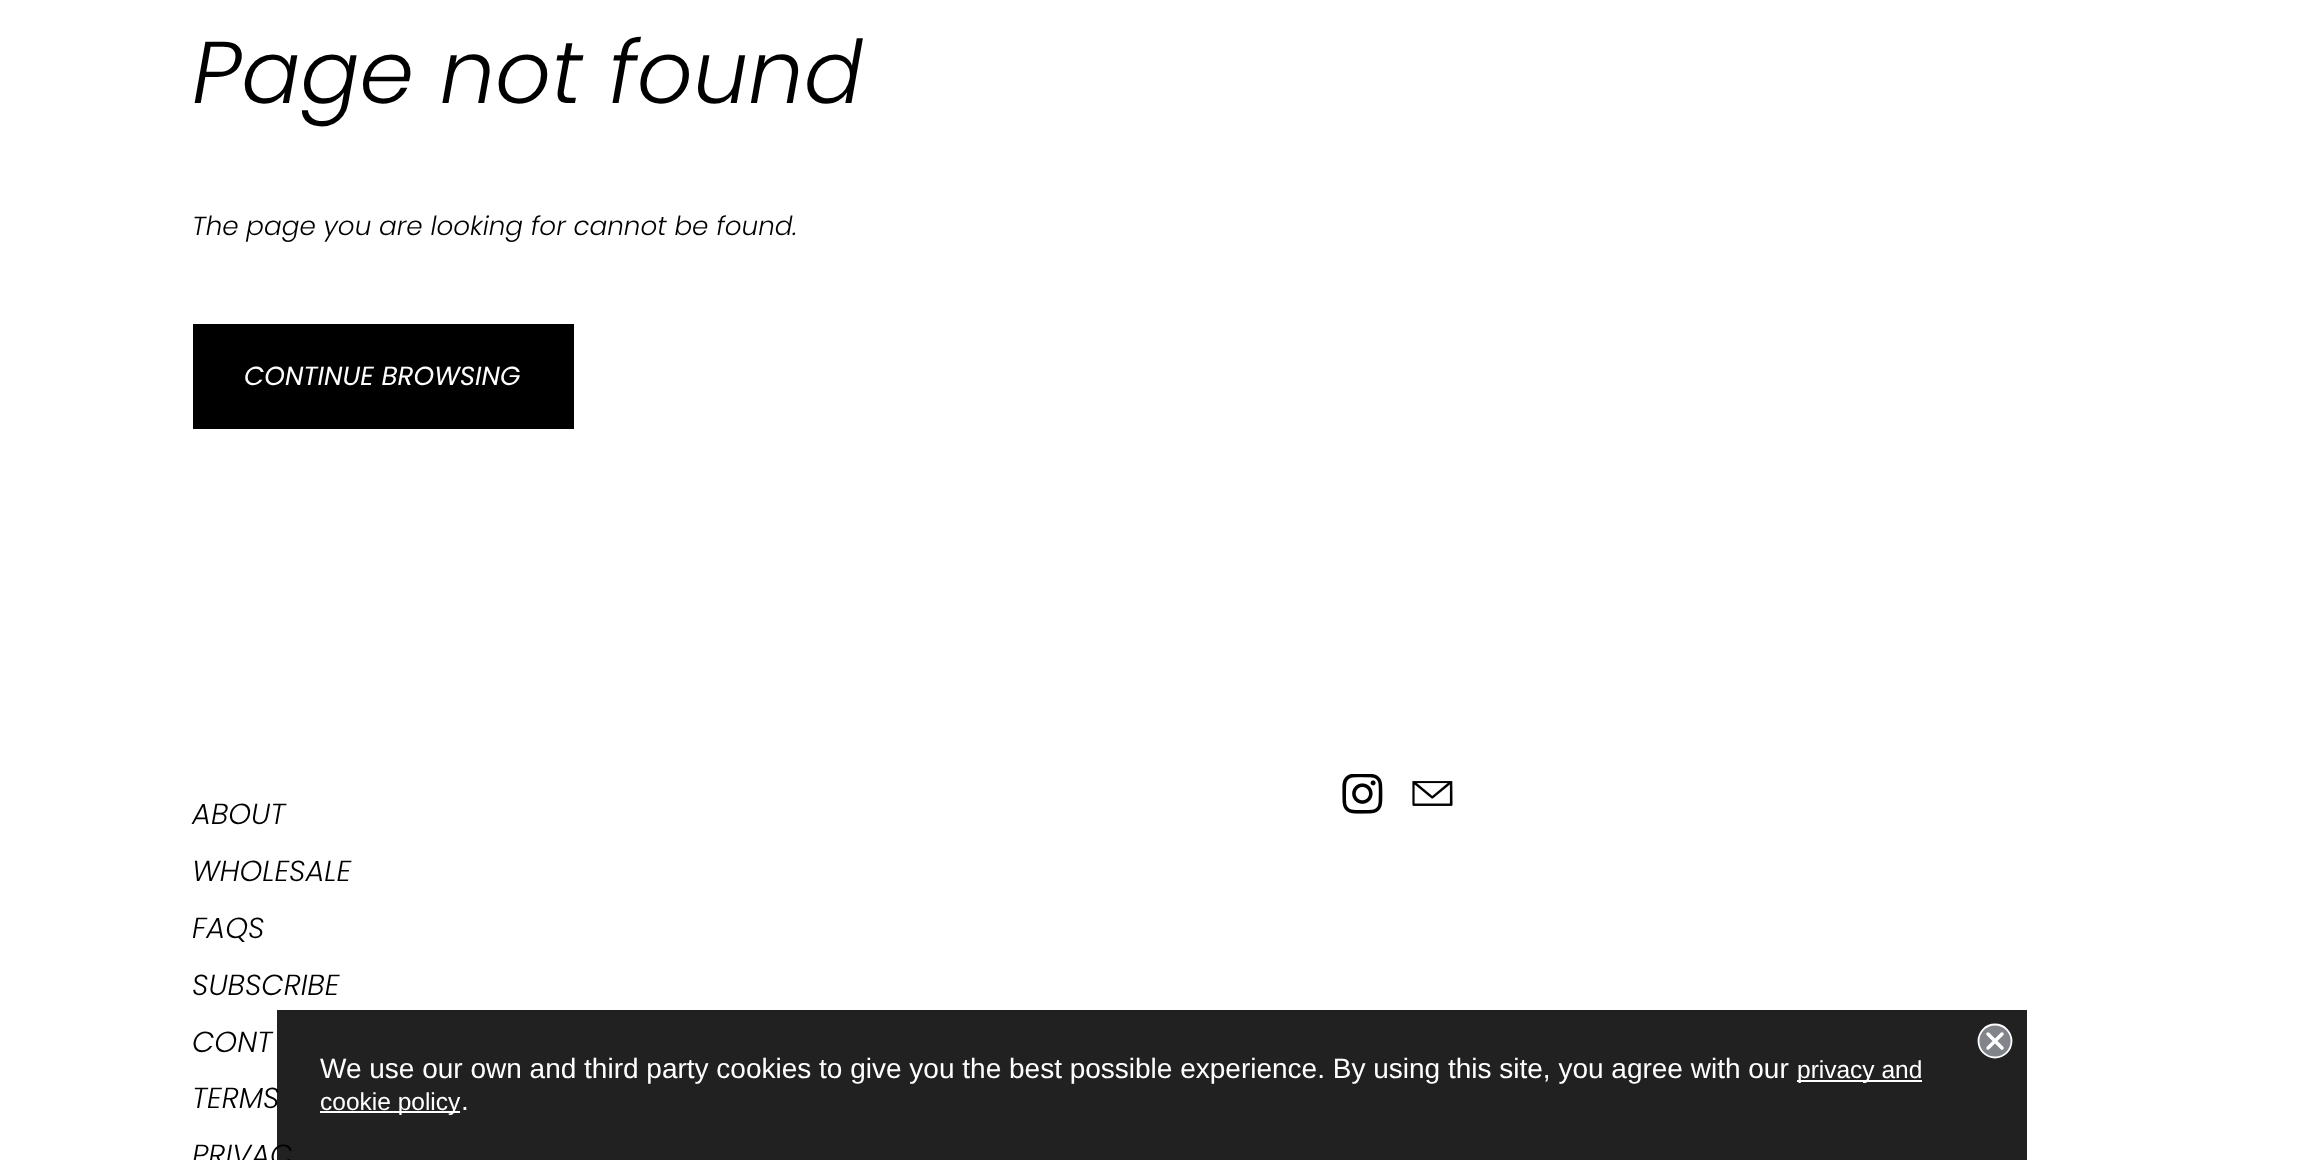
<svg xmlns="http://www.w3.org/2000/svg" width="2302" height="1160">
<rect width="100%" height="100%" fill="#fff"/>
<text x="192" y="103" style="font-family:Poppins;font-size:87.5px;font-weight:300;font-style:italic;fill:#000">Page not found</text>
<text x="192" y="235" style="font-family:Poppins;font-size:26.25px;font-weight:300;font-style:italic;fill:#000">The page you are looking for cannot be found.</text>
<rect x="193" y="324" width="381" height="105" fill="#000"/>
<text x="244" y="385" style="font-family:Poppins;font-size:26.25px;font-style:italic;fill:#fff">CONTINUE BROWSING</text>
<image x="1342" y="774" width="41" height="40" href="media/1.png"/>
<image x="1412" y="781" width="41" height="25" href="media/2.png"/>
<text x="192" y="824" style="font-family:Poppins;font-size:29px;font-weight:300;font-style:italic;fill:#000">ABOUT</text>
<text x="192" y="881" style="font-family:Poppins;font-size:29px;font-weight:300;font-style:italic;fill:#000">WHOLESALE</text>
<text x="192" y="938" style="font-family:Poppins;font-size:29px;font-weight:300;font-style:italic;fill:#000">FAQS</text>
<text x="192" y="995" style="font-family:Poppins;font-size:29px;font-weight:300;font-style:italic;fill:#000">SUBSCRIBE</text>
<text x="192" y="1052" style="font-family:Poppins;font-size:29px;font-weight:300;font-style:italic;fill:#000">CONT</text>
<text x="192" y="1108" style="font-family:Poppins;font-size:29px;font-weight:300;font-style:italic;fill:#000">TERMS</text>
<text x="192" y="1165" style="font-family:Poppins;font-size:29px;font-weight:300;font-style:italic;fill:#000">PRIVAC</text>
<rect x="277" y="1010" width="1750" height="150" fill="#000000de"/>
<circle cx="1995" cy="1041" r="16.5" fill="#81858a" stroke="#fff" stroke-width="1.8"/>
<path d="M1988 1034l14 14m-14 0l14-14z" fill="none" stroke="#fff" stroke-width="3.5" stroke-linecap="round" stroke-linejoin="round"/>
<text x="320" y="1078" style="font-family:Liberation Sans;font-size:28px;fill:#fff">We use our own and third party cookies to give you the best possible experience. By using this site, you agree with our</text>
<rect x="1797" y="1080" width="125" height="2" fill="#fff"/>
<text x="1797" y="1078" style="font-family:Liberation Sans;font-size:24.5px;fill:#fff">privacy and</text>
<rect x="320" y="1111" width="140" height="2" fill="#fff"/>
<text x="320" y="1110" style="font-family:Liberation Sans;font-size:24.5px;fill:#fff">cookie policy</text>
<text x="461" y="1110" style="font-family:Liberation Sans;font-size:28px;fill:#fff">.</text>
</svg>
